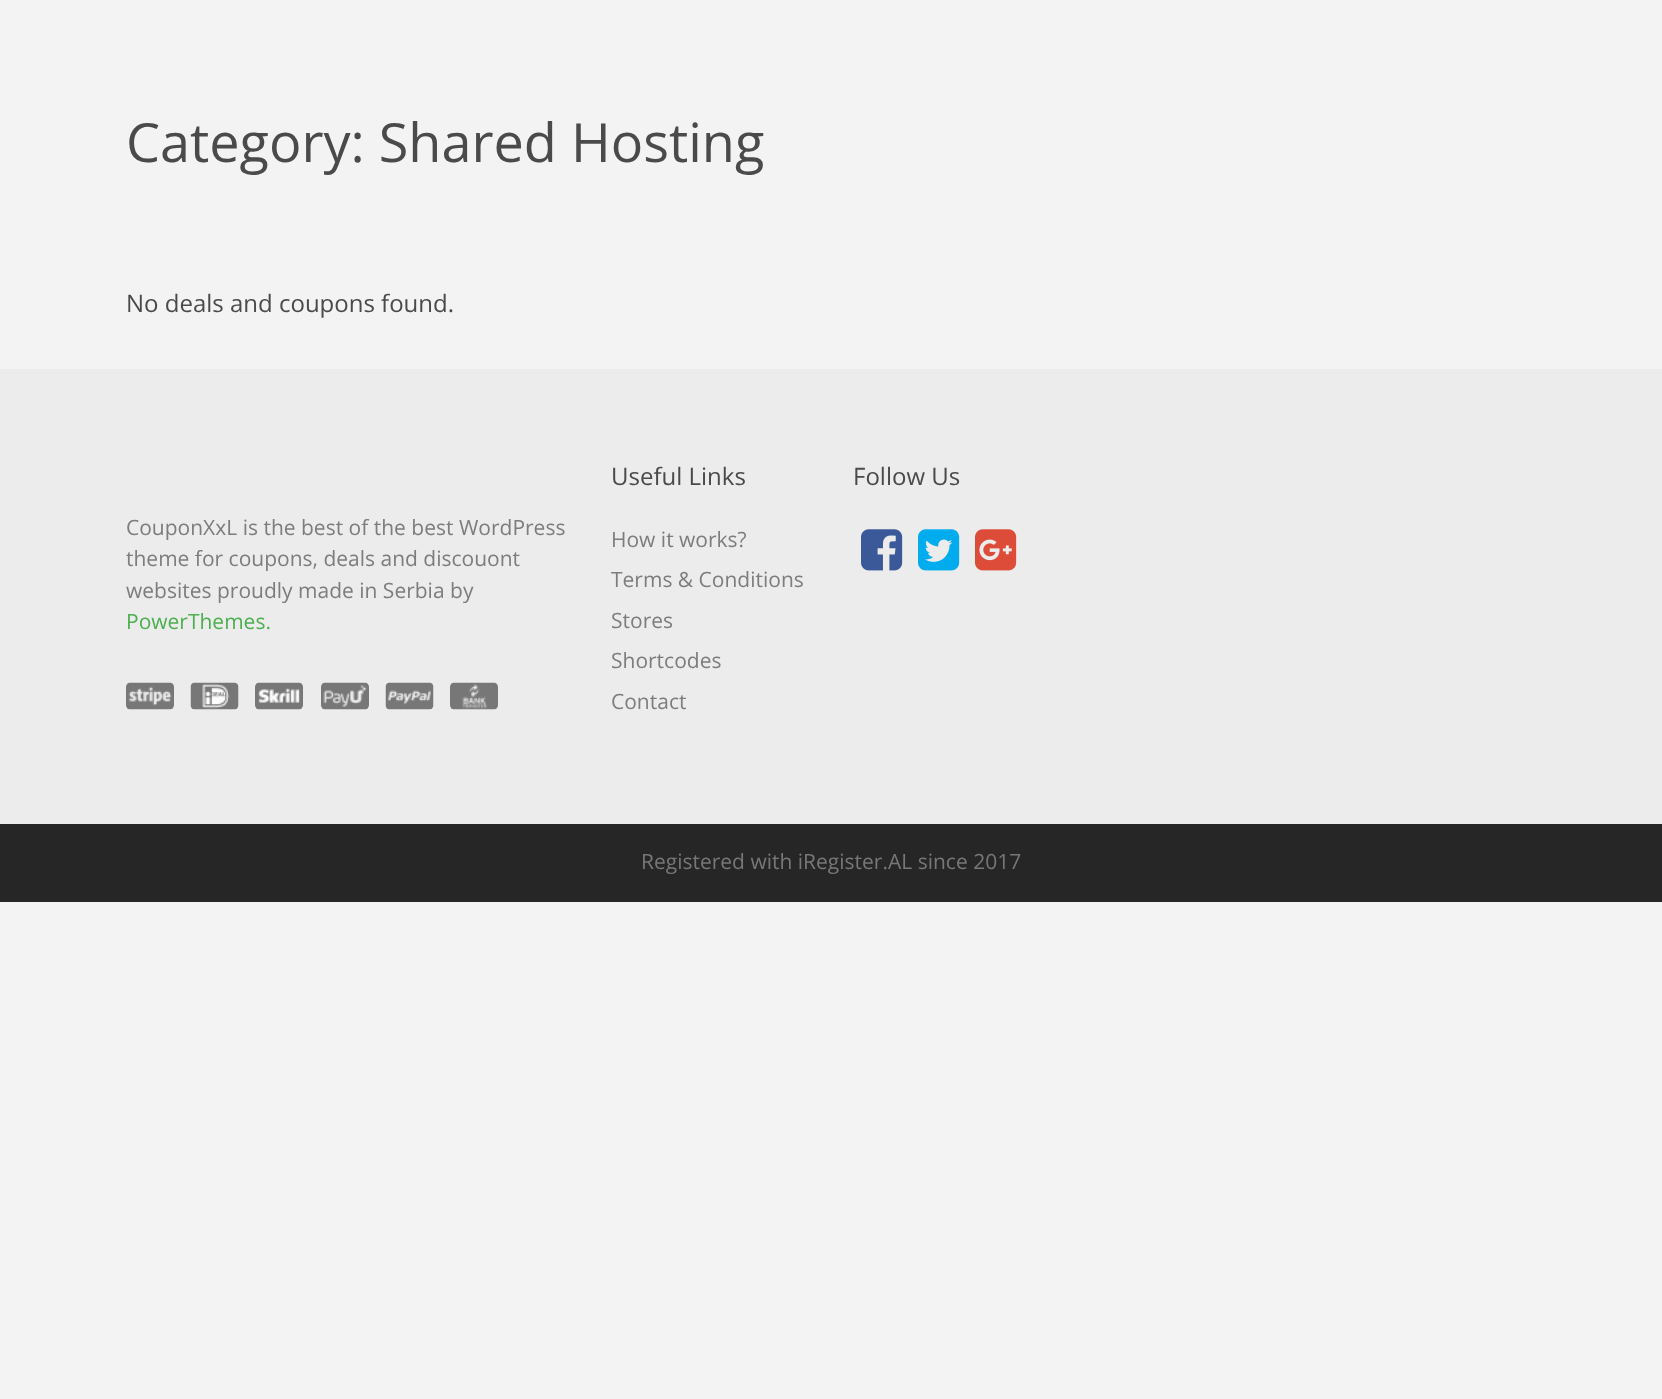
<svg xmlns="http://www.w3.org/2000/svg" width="1662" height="1399">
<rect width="100%" height="100%" fill="#f3f3f3"/>
<text x="126" y="162" style="font-family:Open Sans;font-size:54px;fill:#4a4a4a">Category: Shared Hosting</text>
<text x="126" y="312" style="font-family:Open Sans;font-size:24px;fill:#4a4a4a">No deals and coupons found.</text>
<rect y="369" width="1662" height="455" fill="#ececec"/>
<text x="611" y="485" style="font-family:Open Sans;font-size:24px;fill:#4a4a4a">Useful Links</text>
<text x="611" y="547" style="font-family:Open Sans;font-size:21px;fill:#7d7d7d">How it works?</text>
<text x="611" y="587" style="font-family:Open Sans;font-size:21px;fill:#7d7d7d">Terms &amp; Conditions</text>
<text x="611" y="628" style="font-family:Open Sans;font-size:21px;fill:#7d7d7d">Stores</text>
<text x="611" y="668" style="font-family:Open Sans;font-size:21px;fill:#7d7d7d">Shortcodes</text>
<text x="611" y="709" style="font-family:Open Sans;font-size:21px;fill:#7d7d7d">Contact</text>
<text x="853" y="485" style="font-family:Open Sans;font-size:24px;fill:#4a4a4a">Follow Us</text>
<image x="861" y="529" width="42" height="42" href="media/1.png"/>
<image x="918" y="529" width="42" height="42" href="media/2.png"/>
<image x="975" y="529" width="42" height="42" href="media/3.png"/>
<text x="126" y="535" style="font-family:Open Sans;font-size:21px;fill:#7d7d7d">CouponXxL is the best of the best WordPress</text>
<text x="126" y="566" style="font-family:Open Sans;font-size:21px;fill:#7d7d7d">theme for coupons, deals and discouont</text>
<text x="126" y="598" style="font-family:Open Sans;font-size:21px;fill:#7d7d7d">websites proudly made in Serbia by</text>
<text x="126" y="629" style="font-family:Open Sans;font-size:21px;fill:#4caf50">PowerThemes.</text>
<image x="126" y="682" width="48" height="28" href="media/4.png"/>
<image x="190" y="682" width="49" height="28" href="media/5.png"/>
<image x="255" y="682" width="48" height="28" href="media/6.png"/>
<image x="321" y="682" width="48" height="28" href="media/7.png"/>
<image x="385" y="682" width="49" height="28" href="media/8.png"/>
<image x="450" y="682" width="48" height="28" href="media/9.png"/>
<rect y="824" width="1662" height="78" fill="#262626"/>
<text x="641" y="869" style="font-family:Open Sans;font-size:21px;fill:#777">Registered with iRegister.AL since 2017</text>
</svg>
